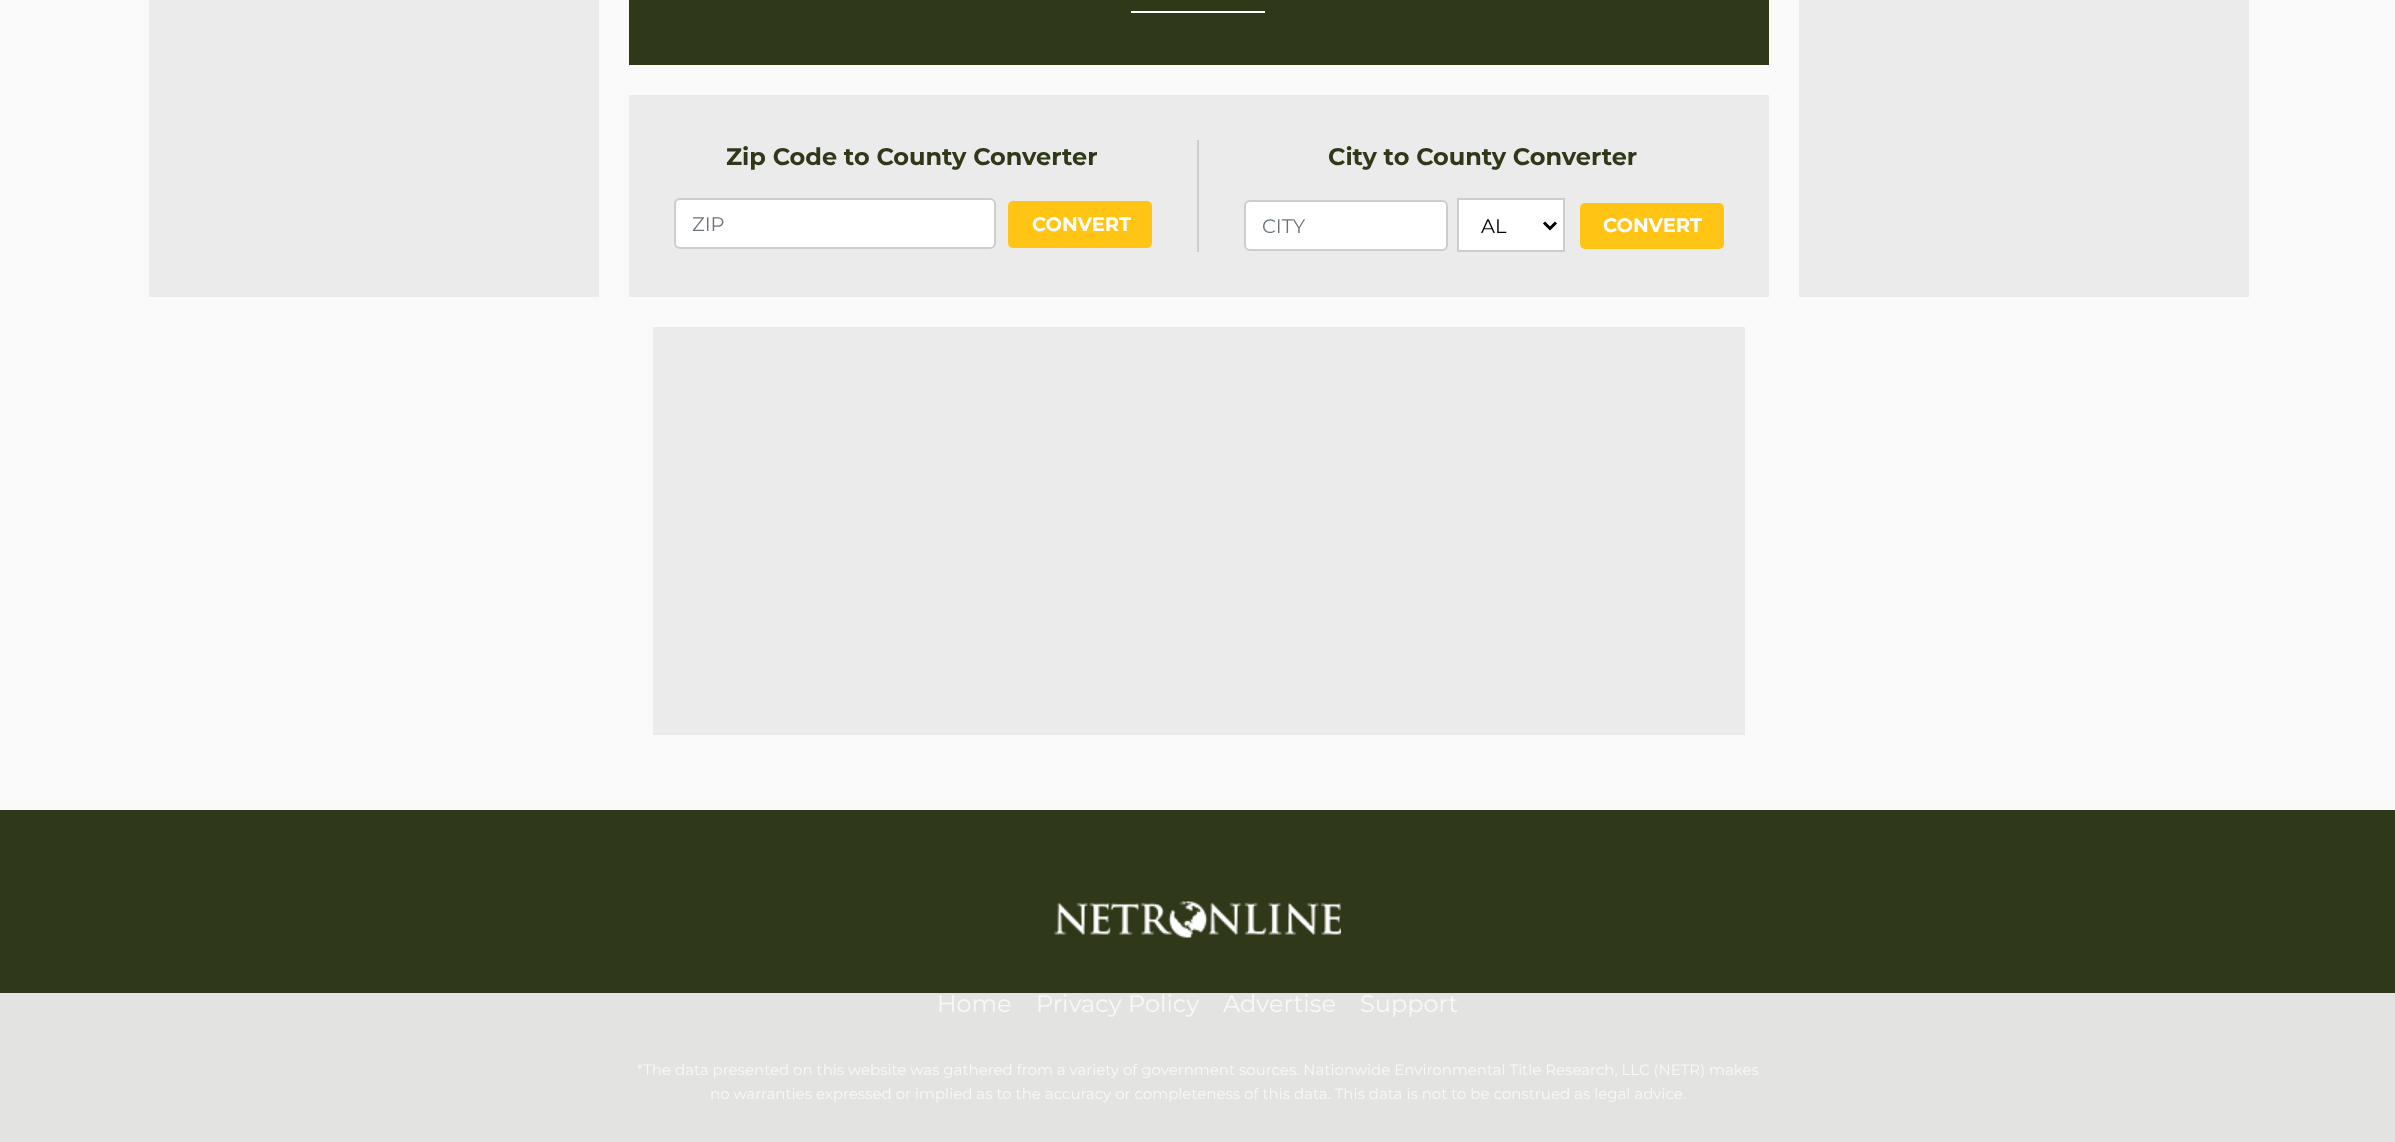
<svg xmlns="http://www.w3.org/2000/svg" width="2395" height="1142">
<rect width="100%" height="100%" fill="#fafafa"/>
<rect x="149" width="450" height="297" fill="#ebebeb"/>
<rect x="629" width="1140" height="65" fill="#2f3818"/>
<rect x="1131" y="11" width="134" height="2" fill="#fff"/>
<rect x="629" y="95" width="1140" height="202" fill="#ebebeb"/>
<rect x="1197" y="140" width="2" height="112" fill="#cdcdcd"/>
<text x="726" y="165" style="font-family:Montserrat;font-size:24px;font-weight:bold;fill:#2f3818">Zip Code to County Converter</text>
<rect x="675" y="199" width="320" height="49" rx="5" fill="#fff" stroke="#cdcdcd" stroke-width="2"/>
<text x="692" y="231" style="font-family:Montserrat;font-size:19.5px;fill:#6c757d">ZIP</text>
<rect x="1008" y="201" width="144" height="47" rx="5" fill="#ffc414"/>
<text x="1032" y="231" style="font-family:Montserrat;font-size:19.5px;font-weight:bold;fill:#fff">CONVERT</text>
<text x="1328" y="165" style="font-family:Montserrat;font-size:24px;font-weight:bold;fill:#2f3818">City to County Converter</text>
<rect x="1245" y="201" width="202" height="49" rx="5" fill="#fff" stroke="#cdcdcd" stroke-width="2"/>
<text x="1262" y="233" style="font-family:Montserrat;font-size:19.5px;fill:#6c757d">CITY</text>
<rect x="1458" y="199" width="106" height="52" fill="#fff" stroke="#cdcdcd" stroke-width="2"/>
<path d="M1544 222.5l6 6l6-6" fill="none" stroke="#000" stroke-width="3"/>
<text x="1481" y="233" style="font-family:Montserrat;font-size:19.5px;fill:#000">AL</text>
<rect x="1580" y="203" width="144" height="46" rx="5" fill="#ffc414"/>
<text x="1603" y="232" style="font-family:Montserrat;font-size:19.5px;font-weight:bold;fill:#fff">CONVERT</text>
<rect x="1799" width="450" height="297" fill="#ebebeb"/>
<rect x="653" y="327" width="1092" height="408" fill="#ebebeb"/>
<rect y="810" width="2395" height="183" fill="#2f3818"/>
<rect y="993" width="2395" height="149" fill="#e3e4e1"/>
<image x="1054" y="901" width="287" height="37" href="media/1.png"/>
<text x="937" y="1012" style="font-family:Montserrat;font-size:24px;fill:#f8f8f8">Home</text>
<text x="1036" y="1012" style="font-family:Montserrat;font-size:24px;fill:#f8f8f8">Privacy Policy</text>
<text x="1223" y="1012" style="font-family:Montserrat;font-size:24px;fill:#f8f8f8">Advertise</text>
<text x="1360" y="1012" style="font-family:Montserrat;font-size:24px;fill:#f8f8f8">Support</text>
<text x="637" y="1075" style="font-family:Montserrat;font-size:15px;fill:#f8f8f8">*The data presented on this website was gathered from a variety of government sources. Nationwide Environmental Title Research, LLC (NETR) makes</text>
<text x="710" y="1099" style="font-family:Montserrat;font-size:15px;fill:#f8f8f8">no warranties expressed or implied as to the accuracy or completeness of this data. This data is not to be construed as legal advice.</text>
</svg>
